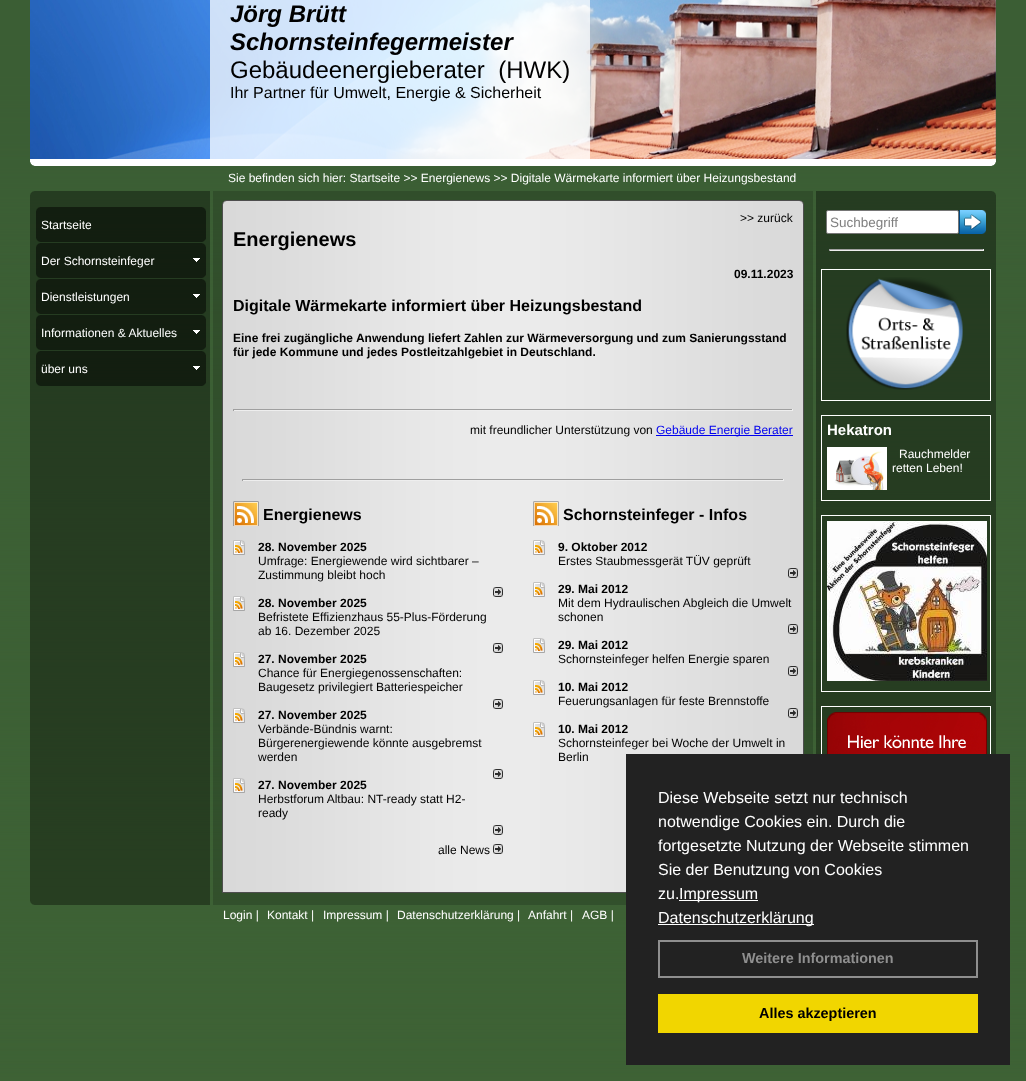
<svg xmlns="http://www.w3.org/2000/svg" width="1026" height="1081">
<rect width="100%" height="100%" fill="#fff"/>
<image x="0" y="0" width="1026" height="1081" href="media/1.png"/>
<image x="30" y="0" width="966" height="159" href="media/2.png"/>
<rect x="210" width="380" height="159" fill="#ffffffbf"/>
<text x="230" y="22" style="font-family:Liberation Sans;font-size:24px;font-weight:bold;font-style:italic;fill:#000">Jörg Brütt</text>
<text x="230" y="50" style="font-family:Liberation Sans;font-size:24px;font-weight:bold;font-style:italic;fill:#000">Schornsteinfegermeister</text>
<text x="230" y="78" style="font-family:Liberation Sans;font-size:24px;fill:#000" xml:space="preserve">Gebäudeenergieberater  (HWK)</text>
<text x="230" y="98" style="font-family:Liberation Sans;font-size:16px;fill:#000">Ihr Partner für Umwelt, Energie &amp; Sicherheit</text>
<image x="30" y="159" width="966" height="7" href="media/3.png"/>
<text x="228" y="182" style="font-family:Liberation Sans;font-size:12px;fill:#fff">Sie befinden sich hier: Startseite &gt;&gt; Energienews &gt;&gt; Digitale Wärmekarte informiert über Heizungsbestand</text>
<image x="30" y="191" width="180" height="15" href="media/4.png"/>
<image x="213" y="191" width="600" height="15" href="media/5.png"/>
<image x="816" y="191" width="180" height="15" href="media/6.png"/>
<rect x="30" y="206" width="180" height="684" fill="#0000005c"/>
<image x="36" y="207" width="170" height="35" href="media/7.png"/>
<text x="41" y="229" style="font-family:Liberation Sans;font-size:12px;fill:#fff">Startseite</text>
<image x="36" y="243" width="170" height="35" href="media/8.png"/>
<text x="41" y="265" style="font-family:Liberation Sans;font-size:12px;fill:#fff">Der Schornsteinfeger</text>
<image x="193" y="258" width="7" height="4" href="media/9.png"/>
<image x="36" y="279" width="170" height="35" href="media/10.png"/>
<text x="41" y="301" style="font-family:Liberation Sans;font-size:12px;fill:#fff">Dienstleistungen</text>
<image x="193" y="294" width="7" height="4" href="media/9.png"/>
<image x="36" y="315" width="170" height="35" href="media/11.png"/>
<text x="41" y="337" style="font-family:Liberation Sans;font-size:12px;fill:#fff">Informationen &amp; Aktuelles</text>
<image x="193" y="330" width="7" height="4" href="media/9.png"/>
<image x="36" y="351" width="170" height="35" href="media/12.png"/>
<text x="41" y="373" style="font-family:Liberation Sans;font-size:12px;fill:#fff">über uns</text>
<image x="193" y="366" width="7" height="4" href="media/9.png"/>
<image x="213" y="206" width="600" height="684" href="media/13.png"/>
<text x="740" y="222" style="font-family:Liberation Sans;font-size:12px;fill:#000">&gt;&gt; zurück</text>
<text x="233" y="246" style="font-family:Liberation Sans;font-size:20px;font-weight:bold;fill:#000">Energienews</text>
<text x="734" y="278" style="font-family:Liberation Sans;font-size:12px;font-weight:bold;fill:#000">09.11.2023</text>
<text x="233" y="311" style="font-family:Liberation Sans;font-size:16px;font-weight:bold;fill:#000">Digitale Wärmekarte informiert über Heizungsbestand</text>
<text x="233" y="342" style="font-family:Liberation Sans;font-size:12px;font-weight:bold;fill:#000">Eine frei zugängliche Anwendung liefert Zahlen zur Wärmeversorgung und zum Sanierungsstand</text>
<text x="233" y="356" style="font-family:Liberation Sans;font-size:12px;font-weight:bold;fill:#000">für jede Kommune und jedes Postleitzahlgebiet in Deutschland.</text>
<rect x="233" y="409" width="560" height="1" fill="#9f9f9f"/>
<rect x="792" y="409" width="1" height="2" fill="#eee"/>
<rect x="233" y="410" width="560" height="1" fill="#eee"/>
<rect x="233" y="409" width="1" height="2" fill="#9f9f9f"/>
<text x="470" y="434" style="font-family:Liberation Sans;font-size:12px;fill:#000">mit freundlicher Unterstützung von</text>
<rect x="656" y="435" width="137" height="1" fill="#00e"/>
<text x="656" y="434" style="font-family:Liberation Sans;font-size:12px;fill:#00e">Gebäude Energie Berater</text>
<rect x="242" y="479" width="542" height="1" fill="#9f9f9f"/>
<rect x="783" y="479" width="1" height="2" fill="#eee"/>
<rect x="242" y="480" width="542" height="1" fill="#eee"/>
<rect x="242" y="479" width="1" height="2" fill="#9f9f9f"/>
<image x="233" y="501" width="26" height="25" href="media/14.png"/>
<text x="263" y="520" style="font-family:Liberation Sans;font-size:16px;font-weight:bold;fill:#000">Energienews</text>
<image x="233" y="540" width="12" height="15" href="media/15.png"/>
<text x="258" y="551" style="font-family:Liberation Sans;font-size:12px;font-weight:bold;fill:#000">28. November 2025</text>
<text x="258" y="565" style="font-family:Liberation Sans;font-size:12px;fill:#000">Umfrage: Energiewende wird sichtbarer –</text>
<text x="258" y="579" style="font-family:Liberation Sans;font-size:12px;fill:#000">Zustimmung bleibt hoch</text>
<image x="493" y="587" width="10" height="10" href="media/16.png"/>
<image x="233" y="596" width="12" height="15" href="media/15.png"/>
<text x="258" y="607" style="font-family:Liberation Sans;font-size:12px;font-weight:bold;fill:#000">28. November 2025</text>
<text x="258" y="621" style="font-family:Liberation Sans;font-size:12px;fill:#000">Befristete Effizienzhaus 55-Plus-Förderung</text>
<text x="258" y="635" style="font-family:Liberation Sans;font-size:12px;fill:#000">ab 16. Dezember 2025</text>
<image x="493" y="643" width="10" height="10" href="media/16.png"/>
<image x="233" y="652" width="12" height="15" href="media/15.png"/>
<text x="258" y="663" style="font-family:Liberation Sans;font-size:12px;font-weight:bold;fill:#000">27. November 2025</text>
<text x="258" y="677" style="font-family:Liberation Sans;font-size:12px;fill:#000">Chance für Energiegenossenschaften:</text>
<text x="258" y="691" style="font-family:Liberation Sans;font-size:12px;fill:#000">Baugesetz privilegiert Batteriespeicher</text>
<image x="493" y="699" width="10" height="10" href="media/16.png"/>
<image x="233" y="708" width="12" height="15" href="media/15.png"/>
<text x="258" y="719" style="font-family:Liberation Sans;font-size:12px;font-weight:bold;fill:#000">27. November 2025</text>
<text x="258" y="733" style="font-family:Liberation Sans;font-size:12px;fill:#000">Verbände-Bündnis warnt:</text>
<text x="258" y="747" style="font-family:Liberation Sans;font-size:12px;fill:#000">Bürgerenergiewende könnte ausgebremst</text>
<text x="258" y="761" style="font-family:Liberation Sans;font-size:12px;fill:#000">werden</text>
<image x="493" y="769" width="10" height="10" href="media/16.png"/>
<image x="233" y="778" width="12" height="15" href="media/15.png"/>
<text x="258" y="789" style="font-family:Liberation Sans;font-size:12px;font-weight:bold;fill:#000">27. November 2025</text>
<text x="258" y="803" style="font-family:Liberation Sans;font-size:12px;fill:#000">Herbstforum Altbau: NT-ready statt H2-</text>
<text x="258" y="817" style="font-family:Liberation Sans;font-size:12px;fill:#000">ready</text>
<image x="493" y="825" width="10" height="10" href="media/16.png"/>
<text x="438" y="854" style="font-family:Liberation Sans;font-size:12px;fill:#000">alle News</text>
<image x="493" y="844" width="10" height="10" href="media/16.png"/>
<image x="533" y="501" width="26" height="25" href="media/17.png"/>
<text x="563" y="520" style="font-family:Liberation Sans;font-size:16px;font-weight:bold;fill:#000">Schornsteinfeger - Infos</text>
<image x="533" y="540" width="12" height="15" href="media/18.png"/>
<text x="558" y="551" style="font-family:Liberation Sans;font-size:12px;font-weight:bold;fill:#000">9. Oktober 2012</text>
<text x="558" y="565" style="font-family:Liberation Sans;font-size:12px;fill:#000">Erstes Staubmessgerät TÜV geprüft</text>
<image x="788" y="568" width="10" height="10" href="media/19.png"/>
<image x="533" y="582" width="12" height="15" href="media/18.png"/>
<text x="558" y="593" style="font-family:Liberation Sans;font-size:12px;font-weight:bold;fill:#000">29. Mai 2012</text>
<text x="558" y="607" style="font-family:Liberation Sans;font-size:12px;fill:#000">Mit dem Hydraulischen Abgleich die Umwelt</text>
<text x="558" y="621" style="font-family:Liberation Sans;font-size:12px;fill:#000">schonen</text>
<image x="788" y="624" width="10" height="10" href="media/19.png"/>
<image x="533" y="638" width="12" height="15" href="media/18.png"/>
<text x="558" y="649" style="font-family:Liberation Sans;font-size:12px;font-weight:bold;fill:#000">29. Mai 2012</text>
<text x="558" y="663" style="font-family:Liberation Sans;font-size:12px;fill:#000">Schornsteinfeger helfen Energie sparen</text>
<image x="788" y="666" width="10" height="10" href="media/19.png"/>
<image x="533" y="680" width="12" height="15" href="media/18.png"/>
<text x="558" y="691" style="font-family:Liberation Sans;font-size:12px;font-weight:bold;fill:#000">10. Mai 2012</text>
<text x="558" y="705" style="font-family:Liberation Sans;font-size:12px;fill:#000">Feuerungsanlagen für feste Brennstoffe</text>
<image x="788" y="708" width="10" height="10" href="media/19.png"/>
<image x="533" y="722" width="12" height="15" href="media/18.png"/>
<text x="558" y="733" style="font-family:Liberation Sans;font-size:12px;font-weight:bold;fill:#000">10. Mai 2012</text>
<text x="558" y="747" style="font-family:Liberation Sans;font-size:12px;fill:#000">Schornsteinfeger bei Woche der Umwelt in</text>
<text x="558" y="761" style="font-family:Liberation Sans;font-size:12px;fill:#000">Berlin</text>
<rect x="816" y="206" width="180" height="548" fill="#0000005c"/>
<rect x="826.5" y="210.5" width="132" height="23" rx="1.5" fill="#fff" stroke="#767676"/>
<text x="830" y="227" style="font-family:Liberation Sans;font-size:13.5px;fill:#808080">Suchbegriff</text>
<image x="959" y="210" width="27" height="24" href="media/20.png"/>
<rect x="829" y="249" width="155" height="1" fill="#9f9f9f"/>
<rect x="983" y="249" width="1" height="2" fill="#eee"/>
<rect x="829" y="250" width="155" height="1" fill="#eee"/>
<rect x="829" y="249" width="1" height="2" fill="#9f9f9f"/>
<rect x="821.5" y="269.5" width="169" height="131" fill="none" stroke="#fff"/>
<image x="846" y="277" width="117" height="113" href="media/21.png"/>
<rect x="821.5" y="415.5" width="169" height="85" fill="none" stroke="#fff"/>
<text x="827" y="435" style="font-family:Liberation Sans;font-size:15px;font-weight:bold;fill:#fff">Hekatron</text>
<image x="827" y="447" width="60" height="43" href="media/22.png"/>
<text x="899" y="458" style="font-family:Liberation Sans;font-size:12px;fill:#fff">Rauchmelder</text>
<text x="892" y="472" style="font-family:Liberation Sans;font-size:12px;fill:#fff">retten Leben!</text>
<rect x="821.5" y="515.5" width="169" height="176" fill="none" stroke="#fff"/>
<image x="827" y="521" width="160" height="160" href="media/23.png"/>
<rect x="821.5" y="706.5" width="169" height="132" fill="none" stroke="#fff"/>
<image x="827" y="712" width="160" height="42" href="media/24.png"/>
<image x="30" y="890" width="180" height="15" href="media/25.png"/>
<image x="213" y="890" width="413" height="15" href="media/26.png"/>
<text x="223" y="919" style="font-family:Liberation Sans;font-size:12px;fill:#fff">Login |</text>
<text x="267" y="919" style="font-family:Liberation Sans;font-size:12px;fill:#fff">Kontakt |</text>
<text x="323" y="919" style="font-family:Liberation Sans;font-size:12px;fill:#fff">Impressum |</text>
<text x="397" y="919" style="font-family:Liberation Sans;font-size:12px;fill:#fff">Datenschutzerklärung |</text>
<text x="528" y="919" style="font-family:Liberation Sans;font-size:12px;fill:#fff">Anfahrt |</text>
<text x="582" y="919" style="font-family:Liberation Sans;font-size:12px;fill:#fff">AGB |</text>
<rect x="626" y="754" width="384" height="311" fill="#222"/>
<text x="658" y="803" style="font-family:Liberation Sans;font-size:16px;fill:#fff">Diese Webseite setzt nur technisch</text>
<text x="658" y="827" style="font-family:Liberation Sans;font-size:16px;fill:#fff">notwendige Cookies ein. Durch die</text>
<text x="658" y="851" style="font-family:Liberation Sans;font-size:16px;fill:#fff">fortgesetzte Nutzung der Webseite stimmen</text>
<text x="658" y="875" style="font-family:Liberation Sans;font-size:16px;fill:#fff">Sie der Benutzung von Cookies</text>
<text x="658" y="899" style="font-family:Liberation Sans;font-size:16px;fill:#fff">zu.</text>
<rect x="679" y="900" width="79" height="1" fill="#fff"/>
<text x="679" y="899" style="font-family:Liberation Sans;font-size:16px;fill:#fff">Impressum</text>
<rect x="658" y="924" width="156" height="1" fill="#fff"/>
<text x="658" y="923" style="font-family:Liberation Sans;font-size:16px;fill:#fff">Datenschutzerklärung</text>
<rect x="659" y="941" width="318" height="36" fill="none" stroke="#8f8f8f" stroke-width="2"/>
<text x="742" y="963" style="font-family:Liberation Sans;font-size:14.4px;font-weight:bold;fill:#8f8f8f">Weitere Informationen</text>
<rect x="658" y="994" width="320" height="39" fill="#f1d600"/>
<text x="759" y="1018" style="font-family:Liberation Sans;font-size:14.4px;font-weight:bold;fill:#000">Alles akzeptieren</text>
</svg>
